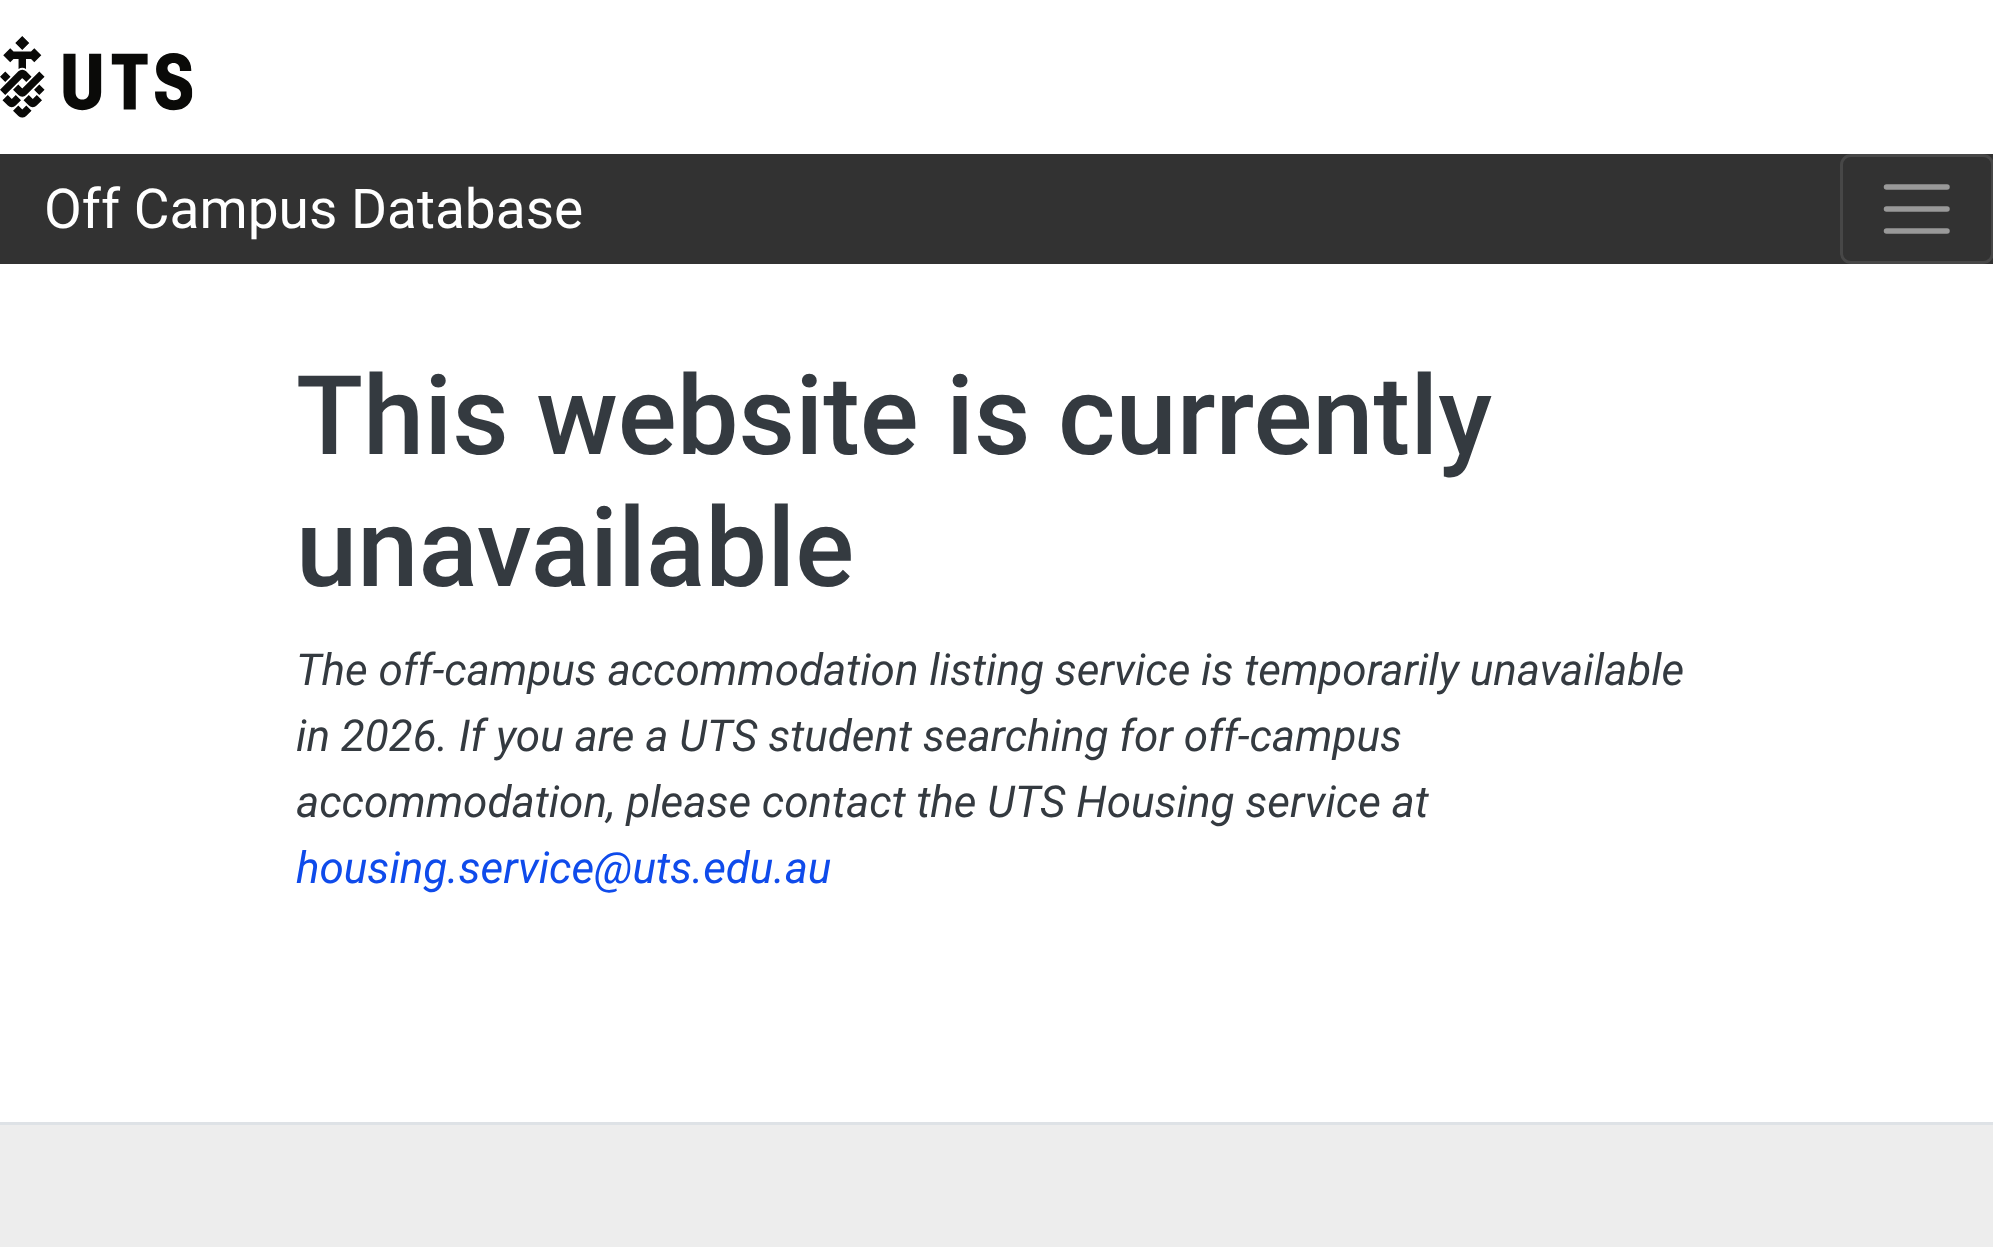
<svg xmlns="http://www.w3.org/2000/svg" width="1993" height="1247">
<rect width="100%" height="100%" fill="#fff"/>
<image x="0" y="36" width="193" height="82" href="media/1.png"/>
<rect y="154" width="1993" height="110" fill="#323232"/>
<text x="44" y="228" style="font-family:Roboto;font-size:55px;fill:#fff">Off Campus Database</text>
<rect x="1841.5" y="155.5" width="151" height="107" rx="9.5" fill="none" stroke="#474747" stroke-width="3"/>
<path d="M1886.5 187h60.5m-60.5 22h60.5m-60.5 22h60.5" fill="none" stroke="#999" stroke-width="5.5" stroke-linecap="round"/>
<text x="296" y="454" style="font-family:Roboto;font-size:110px;font-weight:500;fill:#343a40">This website is currently</text>
<text x="296" y="586" style="font-family:Roboto;font-size:110px;font-weight:500;fill:#343a40">unavailable</text>
<text x="296" y="685" style="font-family:Roboto;font-size:44px;font-style:italic;fill:#343a40">The off-campus accommodation listing service is temporarily unavailable</text>
<text x="296" y="751" style="font-family:Roboto;font-size:44px;font-style:italic;fill:#343a40">in 2026. If you are a UTS student searching for off-campus</text>
<text x="296" y="817" style="font-family:Roboto;font-size:44px;font-style:italic;fill:#343a40">accommodation, please contact the UTS Housing service at</text>
<text x="296" y="883" style="font-family:Roboto;font-size:44px;font-style:italic;fill:#0f4beb">housing.service@uts.edu.au</text>
<rect y="1125" width="1993" height="122" fill="#ededed"/>
<rect y="1122" width="1993" height="3" fill="#dee2e6"/>
</svg>
